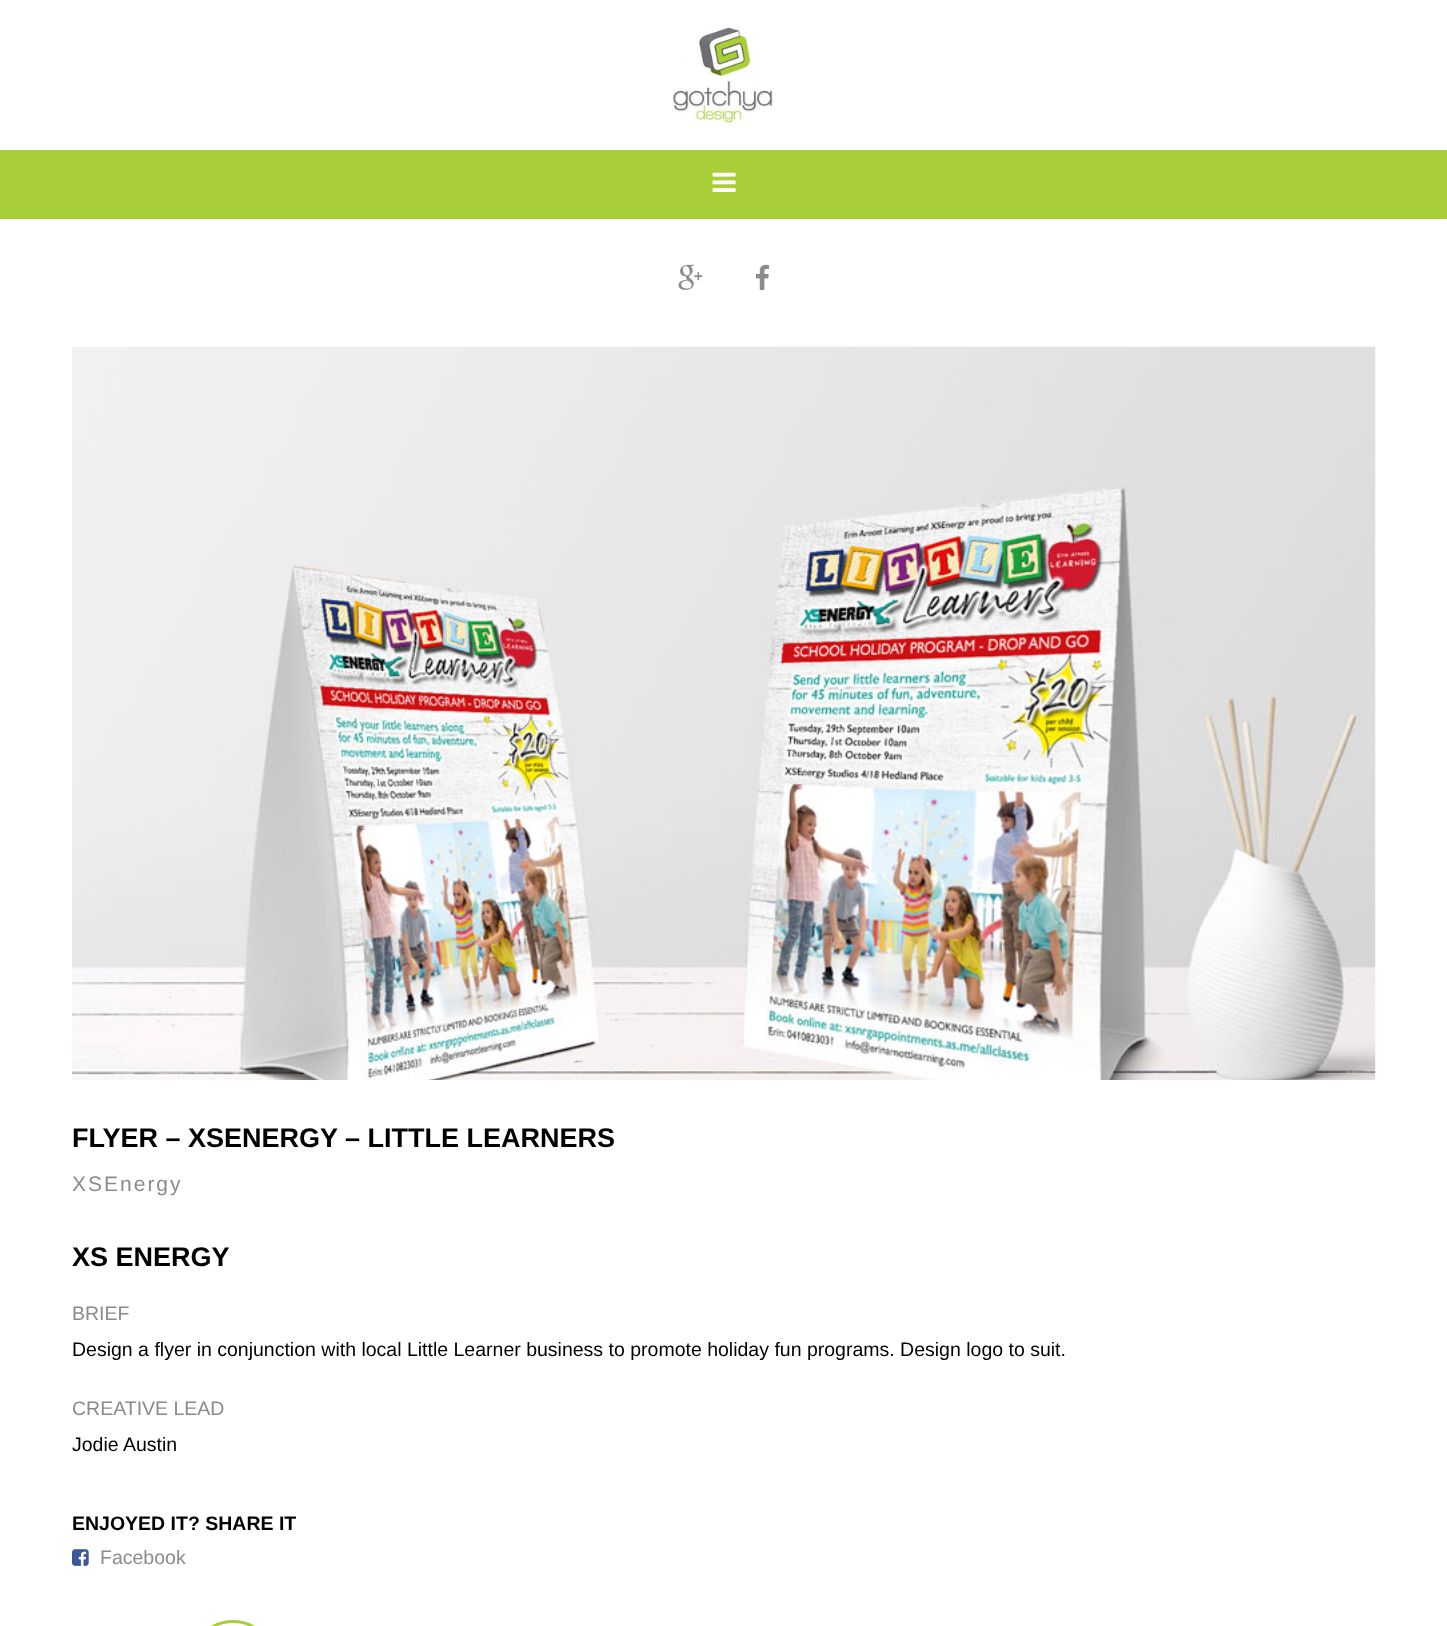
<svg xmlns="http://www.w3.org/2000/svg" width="1447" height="1626">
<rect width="100%" height="100%" fill="#fff"/>
<image x="672" y="27" width="102" height="98" href="media/1.png"/>
<rect y="150" width="1447" height="69" fill="#a8cf38"/>
<image x="712" y="172" width="24" height="20" href="media/2.png"/>
<image x="678" y="264" width="25" height="26" href="media/3.png"/>
<image x="755" y="264" width="14" height="26" href="media/4.png"/>
<image x="72" y="346" width="1304" height="734" href="media/5.png"/>
<text x="72" y="1147" style="font-family:Liberation Sans;font-size:27px;font-weight:bold;fill:#000">FLYER – XSENERGY – LITTLE LEARNERS</text>
<text x="72" y="1191" style="font-family:Liberation Sans;font-size:21px;letter-spacing:2px;fill:#8b8b8b">XSEnergy</text>
<text x="72" y="1266" style="font-family:Liberation Sans;font-size:27px;font-weight:bold;fill:#000">XS ENERGY</text>
<text x="72" y="1320" style="font-family:Liberation Sans;font-size:19.5px;fill:#8b8b8b">BRIEF</text>
<text x="72" y="1356" style="font-family:Liberation Sans;font-size:19.5px;fill:#000">Design a flyer in conjunction with local Little Learner business to promote holiday fun programs. Design logo to suit.</text>
<text x="72" y="1415" style="font-family:Liberation Sans;font-size:19.5px;fill:#8b8b8b">CREATIVE LEAD</text>
<text x="72" y="1451" style="font-family:Liberation Sans;font-size:19.5px;fill:#000">Jodie Austin</text>
<text x="72" y="1530" style="font-family:Liberation Sans;font-size:19.5px;font-weight:bold;fill:#000">ENJOYED IT? SHARE IT</text>
<image x="72" y="1549" width="17" height="17" href="media/6.png"/>
<text x="100" y="1564" style="font-family:Liberation Sans;font-size:19.5px;fill:#8b8b8b">Facebook</text>
<rect x="204.5" y="1621.5" width="57" height="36" rx="28.5" fill="none" stroke="#a8cf38" stroke-width="3"/>
</svg>
